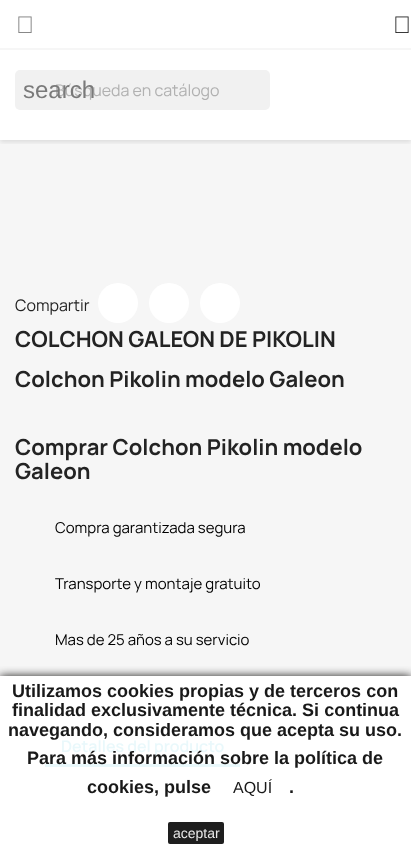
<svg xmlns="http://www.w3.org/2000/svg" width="411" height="855">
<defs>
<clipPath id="clip1"><rect x="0" y="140" width="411" height="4"/></clipPath>
<clipPath id="clip2"><rect x="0" y="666" width="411" height="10"/></clipPath>
</defs>
<rect width="100%" height="100%" fill="#fff"/>
<rect y="140" width="411" height="536" fill="#f6f6f6"/>
<g clip-path="url(#clip1)">
<rect y="2" width="411" height="140" fill="#0000001c" filter="blur(2.5px)"/>
</g>
<rect y="48" width="411" height="2" fill="#f6f6f6"/>
<image x="18" y="16" width="14" height="17" href="media/1.png"/>
<image x="395" y="16" width="14" height="17" href="media/2.png"/>
<rect x="15" y="70" width="255" height="40" rx="5" fill="#f1f1f1"/>
<text x="55" y="96" style="font-family:Manrope;font-size:16px;fill:#b1b1b1">Búsqueda en catálogo</text>
<text x="23" y="98" style="font-family:Liberation Sans;font-size:24px;fill:#7a7a7a">search</text>
<text x="15" y="311" style="font-family:Manrope;font-size:16px;fill:#232323">Compartir</text>
<circle cx="118" cy="303" r="20" fill="#fff"/>
<circle cx="169" cy="303" r="20" fill="#fff"/>
<circle cx="220" cy="303" r="20" fill="#fff"/>
<text x="15" y="347" style="font-family:Manrope;font-size:22px;font-weight:bold;fill:#232323">COLCHON GALEON DE PIKOLIN</text>
<text x="15" y="387" style="font-family:Manrope;font-size:22px;font-weight:bold;fill:#232323">Colchon Pikolin modelo Galeon</text>
<text x="15" y="455" style="font-family:Manrope;font-size:22px;font-weight:bold;fill:#232323">Comprar Colchon Pikolin modelo</text>
<text x="15" y="479" style="font-family:Manrope;font-size:22px;font-weight:bold;fill:#232323">Galeon</text>
<text x="55" y="533" style="font-family:Manrope;font-size:15px;fill:#000">Compra garantizada segura</text>
<text x="55" y="589" style="font-family:Manrope;font-size:15px;fill:#000">Transporte y montaje gratuito</text>
<text x="55" y="645" style="font-family:Manrope;font-size:15px;fill:#000">Mas de 25 años a su servicio</text>
<rect x="45" y="764" width="195" height="3" fill="#e9f8fb"/>
<text x="61" y="752" style="font-family:Manrope;font-size:16px;font-weight:600;fill:#e9f8fb">Detalles del producto</text>
<g clip-path="url(#clip2)">
<rect y="676" width="411" height="179" fill="#1b1a19" filter="blur(5px)"/>
</g>
<text x="12" y="697" style="font-family:Liberation Sans;font-size:18px;font-weight:bold;fill:#191919">Utilizamos cookies propias y de terceros con</text>
<text x="12" y="716" style="font-family:Liberation Sans;font-size:18px;font-weight:bold;fill:#191919">finalidad exclusivamente técnica. Si continua</text>
<text x="8" y="736" style="font-family:Liberation Sans;font-size:18px;font-weight:bold;fill:#191919">navegando, consideramos que acepta su uso.</text>
<text x="27" y="764" style="font-family:Liberation Sans;font-size:18px;font-weight:bold;fill:#191919">Para más información sobre la política de</text>
<text x="87" y="793" style="font-family:Liberation Sans;font-size:18px;font-weight:bold;fill:#191919">cookies, pulse</text>
<text x="233" y="793" style="font-family:Liberation Sans;font-size:16px;fill:#191919">AQUÍ</text>
<text x="289" y="793" style="font-family:Liberation Sans;font-size:18px;font-weight:bold;fill:#191919">.</text>
<rect x="168" y="822" width="56" height="22" rx="2" fill="#1e1e1e"/>
<text x="173" y="838" style="font-family:Liberation Sans;font-size:14px;fill:#e9e9e9">aceptar</text>
</svg>
